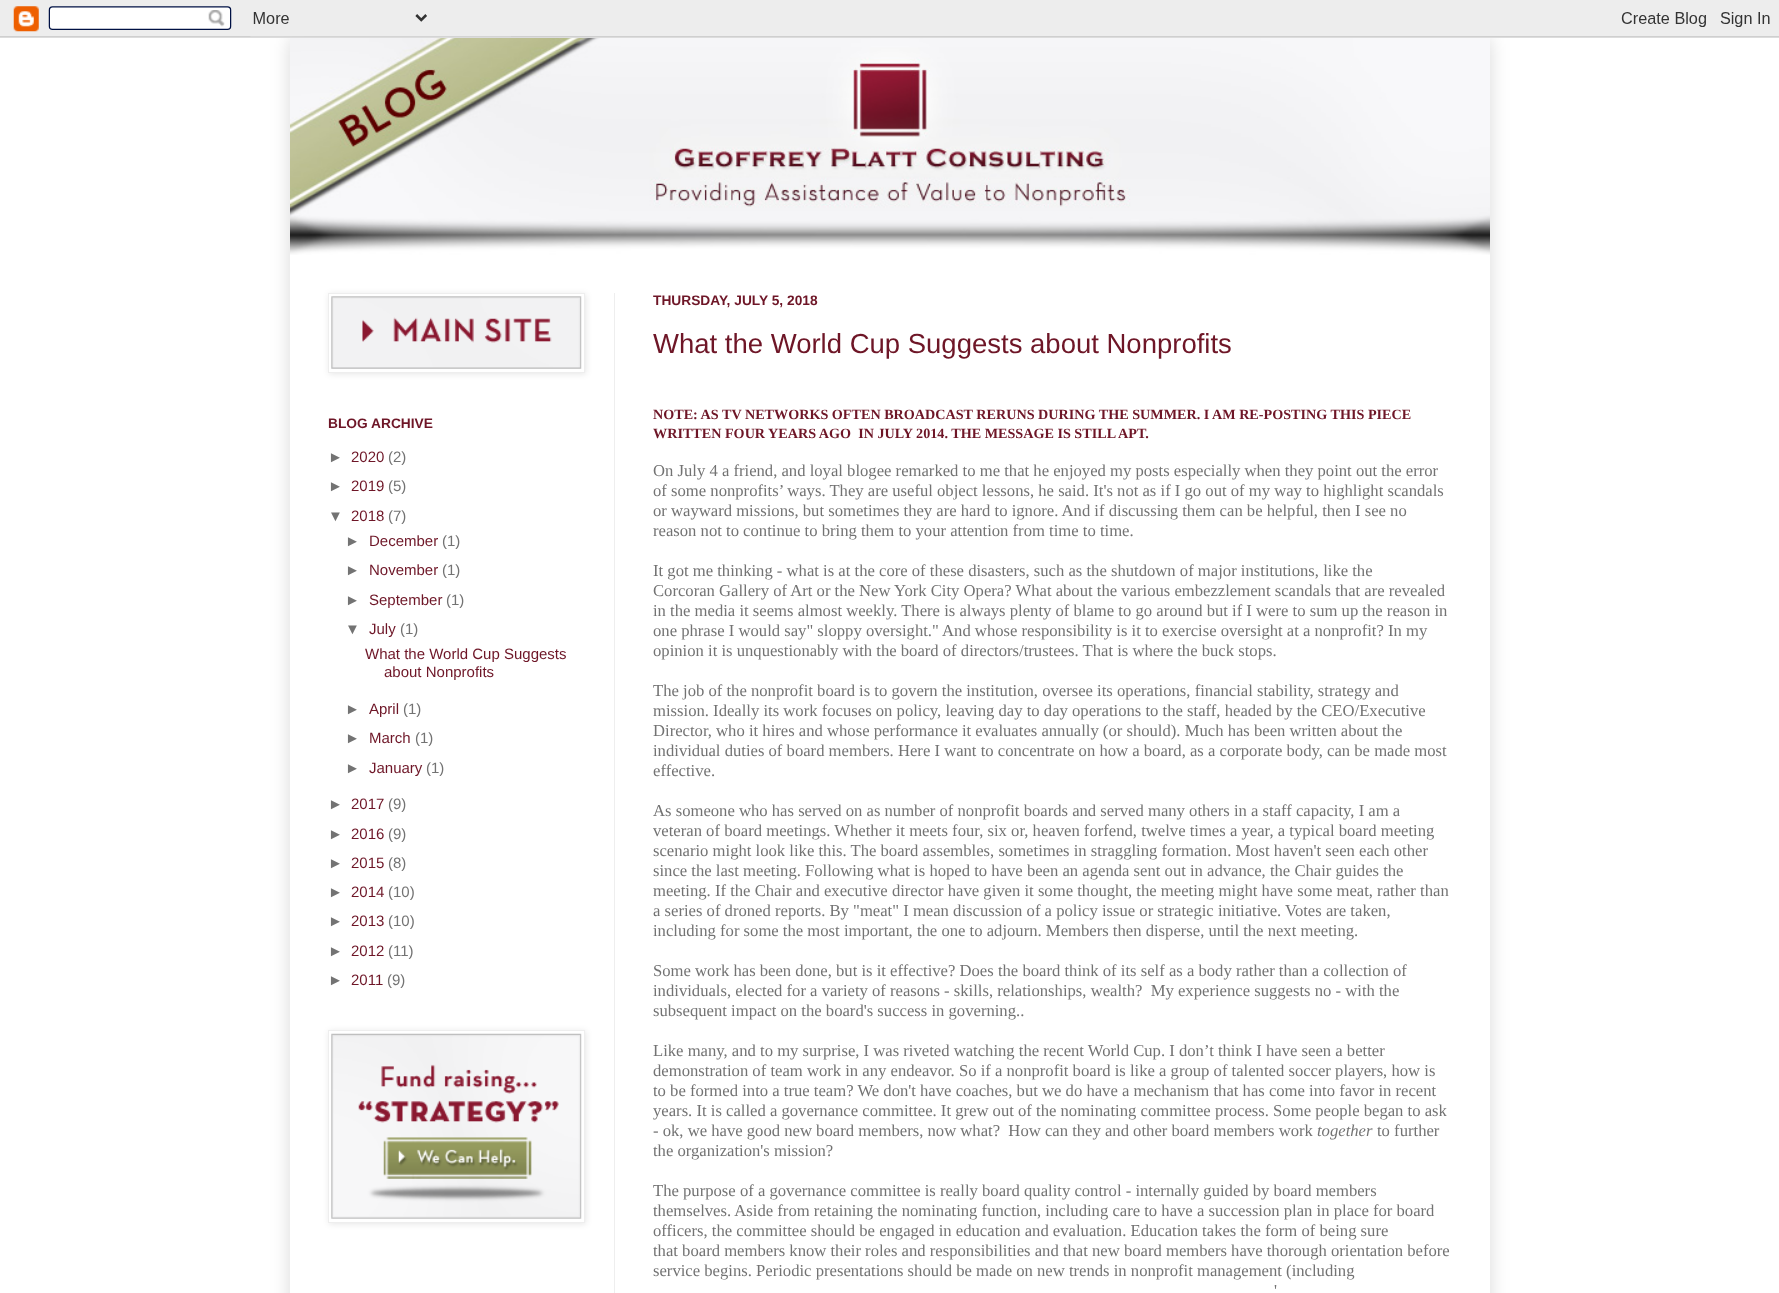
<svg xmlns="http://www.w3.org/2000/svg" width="1779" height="1293">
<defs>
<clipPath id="clip1"><path d="M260 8h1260v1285h-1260zm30 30h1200v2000h-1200z" clip-rule="evenodd"/></clipPath>
</defs>
<rect width="100%" height="100%" fill="#fff"/>
<g clip-path="url(#clip1)">
<rect x="290" y="38" width="1200" height="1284" fill="#00000026" filter="blur(9.5px)"/>
</g>
<image x="0" y="0" width="1779" height="38" href="media/1.png"/>
<image x="290" y="38" width="1200" height="217" href="media/2.png"/>
<rect x="614" y="293" width="1" height="1000" fill="#eee"/>
<rect x="329" y="294" width="257" height="80" fill="#0000001a" filter="blur(3px)"/>
<rect x="328.5" y="293.5" width="256" height="79" fill="#fff" stroke="#eee"/>
<image x="331" y="296" width="251" height="73" href="media/3.png"/>
<text x="328" y="428" style="font-family:Liberation Sans;font-size:13.75px;font-weight:bold;fill:#6e1627">BLOG ARCHIVE</text>
<text x="328" y="462" style="font-family:Liberation Sans;font-size:15px;fill:#737373">►</text>
<text x="351" y="462" style="font-family:Liberation Sans;font-size:15px;fill:#6e1627">2020</text>
<text x="388" y="462" style="font-family:Liberation Sans;font-size:15px;fill:#737373">(2)</text>
<text x="328" y="491" style="font-family:Liberation Sans;font-size:15px;fill:#737373">►</text>
<text x="351" y="491" style="font-family:Liberation Sans;font-size:15px;fill:#6e1627">2019</text>
<text x="388" y="491" style="font-family:Liberation Sans;font-size:15px;fill:#737373">(5)</text>
<text x="328" y="521" style="font-family:Liberation Sans;font-size:15px;fill:#737373">▼</text>
<text x="351" y="521" style="font-family:Liberation Sans;font-size:15px;fill:#6e1627">2018</text>
<text x="388" y="521" style="font-family:Liberation Sans;font-size:15px;fill:#737373">(7)</text>
<text x="345" y="546" style="font-family:Liberation Sans;font-size:15px;fill:#737373">►</text>
<text x="369" y="546" style="font-family:Liberation Sans;font-size:15px;fill:#6e1627">December</text>
<text x="442" y="546" style="font-family:Liberation Sans;font-size:15px;fill:#737373">(1)</text>
<text x="345" y="575" style="font-family:Liberation Sans;font-size:15px;fill:#737373">►</text>
<text x="369" y="575" style="font-family:Liberation Sans;font-size:15px;fill:#6e1627">November</text>
<text x="442" y="575" style="font-family:Liberation Sans;font-size:15px;fill:#737373">(1)</text>
<text x="345" y="605" style="font-family:Liberation Sans;font-size:15px;fill:#737373">►</text>
<text x="369" y="605" style="font-family:Liberation Sans;font-size:15px;fill:#6e1627">September</text>
<text x="446" y="605" style="font-family:Liberation Sans;font-size:15px;fill:#737373">(1)</text>
<text x="345" y="634" style="font-family:Liberation Sans;font-size:15px;fill:#737373">▼</text>
<text x="369" y="634" style="font-family:Liberation Sans;font-size:15px;fill:#6e1627">July</text>
<text x="400" y="634" style="font-family:Liberation Sans;font-size:15px;fill:#737373">(1)</text>
<text x="365" y="659" style="font-family:Liberation Sans;font-size:15px;fill:#6e1627">What the World Cup Suggests</text>
<text x="384" y="677" style="font-family:Liberation Sans;font-size:15px;fill:#6e1627">about Nonprofits</text>
<text x="345" y="714" style="font-family:Liberation Sans;font-size:15px;fill:#737373">►</text>
<text x="369" y="714" style="font-family:Liberation Sans;font-size:15px;fill:#6e1627">April</text>
<text x="403" y="714" style="font-family:Liberation Sans;font-size:15px;fill:#737373">(1)</text>
<text x="345" y="743" style="font-family:Liberation Sans;font-size:15px;fill:#737373">►</text>
<text x="369" y="743" style="font-family:Liberation Sans;font-size:15px;fill:#6e1627">March</text>
<text x="415" y="743" style="font-family:Liberation Sans;font-size:15px;fill:#737373">(1)</text>
<text x="345" y="773" style="font-family:Liberation Sans;font-size:15px;fill:#737373">►</text>
<text x="369" y="773" style="font-family:Liberation Sans;font-size:15px;fill:#6e1627">January</text>
<text x="426" y="773" style="font-family:Liberation Sans;font-size:15px;fill:#737373">(1)</text>
<text x="328" y="809" style="font-family:Liberation Sans;font-size:15px;fill:#737373">►</text>
<text x="351" y="809" style="font-family:Liberation Sans;font-size:15px;fill:#6e1627">2017</text>
<text x="388" y="809" style="font-family:Liberation Sans;font-size:15px;fill:#737373">(9)</text>
<text x="328" y="839" style="font-family:Liberation Sans;font-size:15px;fill:#737373">►</text>
<text x="351" y="839" style="font-family:Liberation Sans;font-size:15px;fill:#6e1627">2016</text>
<text x="388" y="839" style="font-family:Liberation Sans;font-size:15px;fill:#737373">(9)</text>
<text x="328" y="868" style="font-family:Liberation Sans;font-size:15px;fill:#737373">►</text>
<text x="351" y="868" style="font-family:Liberation Sans;font-size:15px;fill:#6e1627">2015</text>
<text x="388" y="868" style="font-family:Liberation Sans;font-size:15px;fill:#737373">(8)</text>
<text x="328" y="897" style="font-family:Liberation Sans;font-size:15px;fill:#737373">►</text>
<text x="351" y="897" style="font-family:Liberation Sans;font-size:15px;fill:#6e1627">2014</text>
<text x="388" y="897" style="font-family:Liberation Sans;font-size:15px;fill:#737373">(10)</text>
<text x="328" y="926" style="font-family:Liberation Sans;font-size:15px;fill:#737373">►</text>
<text x="351" y="926" style="font-family:Liberation Sans;font-size:15px;fill:#6e1627">2013</text>
<text x="388" y="926" style="font-family:Liberation Sans;font-size:15px;fill:#737373">(10)</text>
<text x="328" y="956" style="font-family:Liberation Sans;font-size:15px;fill:#737373">►</text>
<text x="351" y="956" style="font-family:Liberation Sans;font-size:15px;fill:#6e1627">2012</text>
<text x="388" y="956" style="font-family:Liberation Sans;font-size:15px;fill:#737373">(11)</text>
<text x="328" y="985" style="font-family:Liberation Sans;font-size:15px;fill:#737373">►</text>
<text x="351" y="985" style="font-family:Liberation Sans;font-size:15px;fill:#6e1627">2011</text>
<text x="387" y="985" style="font-family:Liberation Sans;font-size:15px;fill:#737373">(9)</text>
<rect x="329" y="1031" width="257" height="193" fill="#0000001a" filter="blur(3px)"/>
<rect x="328.5" y="1030.5" width="256" height="192" fill="#fff" stroke="#eee"/>
<image x="331" y="1033" width="251" height="186" href="media/4.png"/>
<text x="653" y="305" style="font-family:Liberation Sans;font-size:13.75px;font-weight:bold;fill:#6e1627">THURSDAY, JULY 5, 2018</text>
<text x="653" y="353" style="font-family:Liberation Sans;font-size:27.5px;fill:#6e1627">What the World Cup Suggests about Nonprofits</text>
<text x="653" y="419" style="font-family:Liberation Serif;font-size:14.17px;font-weight:bold;fill:#6e1627">NOTE: AS TV NETWORKS OFTEN BROADCAST RERUNS DURING THE SUMMER. I AM RE-POSTING THIS PIECE</text>
<text x="653" y="438" style="font-family:Liberation Serif;font-size:14.17px;font-weight:bold;fill:#6e1627" xml:space="preserve">WRITTEN FOUR YEARS AGO  IN JULY 2014. THE MESSAGE IS STILL APT.</text>
<text x="653" y="476" style="font-family:Liberation Serif;font-size:16.65px;fill:#737373">On July 4 a friend, and loyal blogee remarked to me that he enjoyed my posts especially when they point out the error</text>
<text x="653" y="496" style="font-family:Liberation Serif;font-size:16.65px;fill:#737373">of some nonprofits’ ways. They are useful object lessons, he said. It's not as if I go out of my way to highlight scandals</text>
<text x="653" y="516" style="font-family:Liberation Serif;font-size:16.65px;fill:#737373">or wayward missions, but sometimes they are hard to ignore. And if discussing them can be helpful, then I see no</text>
<text x="653" y="536" style="font-family:Liberation Serif;font-size:16.65px;fill:#737373">reason not to continue to bring them to your attention from time to time.</text>
<text x="653" y="576" style="font-family:Liberation Serif;font-size:16.65px;fill:#737373">It got me thinking - what is at the core of these disasters, such as the shutdown of major institutions, like the</text>
<text x="653" y="596" style="font-family:Liberation Serif;font-size:16.65px;fill:#737373">Corcoran Gallery of Art or the New York City Opera? What about the various embezzlement scandals that are revealed</text>
<text x="653" y="616" style="font-family:Liberation Serif;font-size:16.65px;fill:#737373">in the media it seems almost weekly. There is always plenty of blame to go around but if I were to sum up the reason in</text>
<text x="653" y="636" style="font-family:Liberation Serif;font-size:16.65px;fill:#737373">one phrase I would say" sloppy oversight." And whose responsibility is it to exercise oversight at a nonprofit? In my</text>
<text x="653" y="656" style="font-family:Liberation Serif;font-size:16.65px;fill:#737373">opinion it is unquestionably with the board of directors/trustees. That is where the buck stops.</text>
<text x="653" y="696" style="font-family:Liberation Serif;font-size:16.65px;fill:#737373">The job of the nonprofit board is to govern the institution, oversee its operations, financial stability, strategy and</text>
<text x="653" y="716" style="font-family:Liberation Serif;font-size:16.65px;fill:#737373">mission. Ideally its work focuses on policy, leaving day to day operations to the staff, headed by the CEO/Executive</text>
<text x="653" y="736" style="font-family:Liberation Serif;font-size:16.65px;fill:#737373">Director, who it hires and whose performance it evaluates annually (or should). Much has been written about the</text>
<text x="653" y="756" style="font-family:Liberation Serif;font-size:16.65px;fill:#737373">individual duties of board members. Here I want to concentrate on how a board, as a corporate body, can be made most</text>
<text x="653" y="776" style="font-family:Liberation Serif;font-size:16.65px;fill:#737373">effective.</text>
<text x="653" y="816" style="font-family:Liberation Serif;font-size:16.65px;fill:#737373">As someone who has served on as number of nonprofit boards and served many others in a staff capacity, I am a</text>
<text x="653" y="836" style="font-family:Liberation Serif;font-size:16.65px;fill:#737373">veteran of board meetings. Whether it meets four, six or, heaven forfend, twelve times a year, a typical board meeting</text>
<text x="653" y="856" style="font-family:Liberation Serif;font-size:16.65px;fill:#737373">scenario might look like this. The board assembles, sometimes in straggling formation. Most haven't seen each other</text>
<text x="653" y="876" style="font-family:Liberation Serif;font-size:16.65px;fill:#737373">since the last meeting. Following what is hoped to have been an agenda sent out in advance, the Chair guides the</text>
<text x="653" y="896" style="font-family:Liberation Serif;font-size:16.65px;fill:#737373">meeting. If the Chair and executive director have given it some thought, the meeting might have some meat, rather than</text>
<text x="653" y="916" style="font-family:Liberation Serif;font-size:16.65px;fill:#737373">a series of droned reports. By "meat" I mean discussion of a policy issue or strategic initiative. Votes are taken,</text>
<text x="653" y="936" style="font-family:Liberation Serif;font-size:16.65px;fill:#737373">including for some the most important, the one to adjourn. Members then disperse, until the next meeting.</text>
<text x="653" y="976" style="font-family:Liberation Serif;font-size:16.65px;fill:#737373">Some work has been done, but is it effective? Does the board think of its self as a body rather than a collection of</text>
<text x="653" y="996" style="font-family:Liberation Serif;font-size:16.65px;fill:#737373" xml:space="preserve">individuals, elected for a variety of reasons - skills, relationships, wealth?  My experience suggests no - with the</text>
<text x="653" y="1016" style="font-family:Liberation Serif;font-size:16.65px;fill:#737373">subsequent impact on the board's success in governing..</text>
<text x="653" y="1056" style="font-family:Liberation Serif;font-size:16.65px;fill:#737373">Like many, and to my surprise, I was riveted watching the recent World Cup. I don’t think I have seen a better</text>
<text x="653" y="1076" style="font-family:Liberation Serif;font-size:16.65px;fill:#737373">demonstration of team work in any endeavor. So if a nonprofit board is like a group of talented soccer players, how is</text>
<text x="653" y="1096" style="font-family:Liberation Serif;font-size:16.65px;fill:#737373">to be formed into a true team? We don't have coaches, but we do have a mechanism that has come into favor in recent</text>
<text x="653" y="1116" style="font-family:Liberation Serif;font-size:16.65px;fill:#737373">years. It is called a governance committee. It grew out of the nominating committee process. Some people began to ask</text>
<text x="653" y="1136" style="font-family:Liberation Serif;font-size:16.65px;fill:#737373" xml:space="preserve">- ok, we have good new board members, now what?  How can they and other board members work</text>
<text x="1317" y="1136" style="font-family:Liberation Serif;font-size:16.65px;font-style:italic;fill:#737373">together</text>
<text x="1377" y="1136" style="font-family:Liberation Serif;font-size:16.65px;fill:#737373">to further</text>
<text x="653" y="1156" style="font-family:Liberation Serif;font-size:16.65px;fill:#737373">the organization's mission?</text>
<text x="653" y="1196" style="font-family:Liberation Serif;font-size:16.65px;fill:#737373">The purpose of a governance committee is really board quality control - internally guided by board members</text>
<text x="653" y="1216" style="font-family:Liberation Serif;font-size:16.65px;fill:#737373">themselves. Aside from retaining the nominating function, including care to have a succession plan in place for board</text>
<text x="653" y="1236" style="font-family:Liberation Serif;font-size:16.65px;fill:#737373">officers, the committee should be engaged in education and evaluation. Education takes the form of being sure</text>
<text x="653" y="1256" style="font-family:Liberation Serif;font-size:16.65px;fill:#737373">that board members know their roles and responsibilities and that new board members have thorough orientation before</text>
<text x="653" y="1276" style="font-family:Liberation Serif;font-size:16.65px;fill:#737373">service begins. Periodic presentations should be made on new trends in nonprofit management (including</text>
<text x="1274" y="1296" style="font-family:Liberation Serif;font-size:16.65px;fill:#737373">'</text>
</svg>
